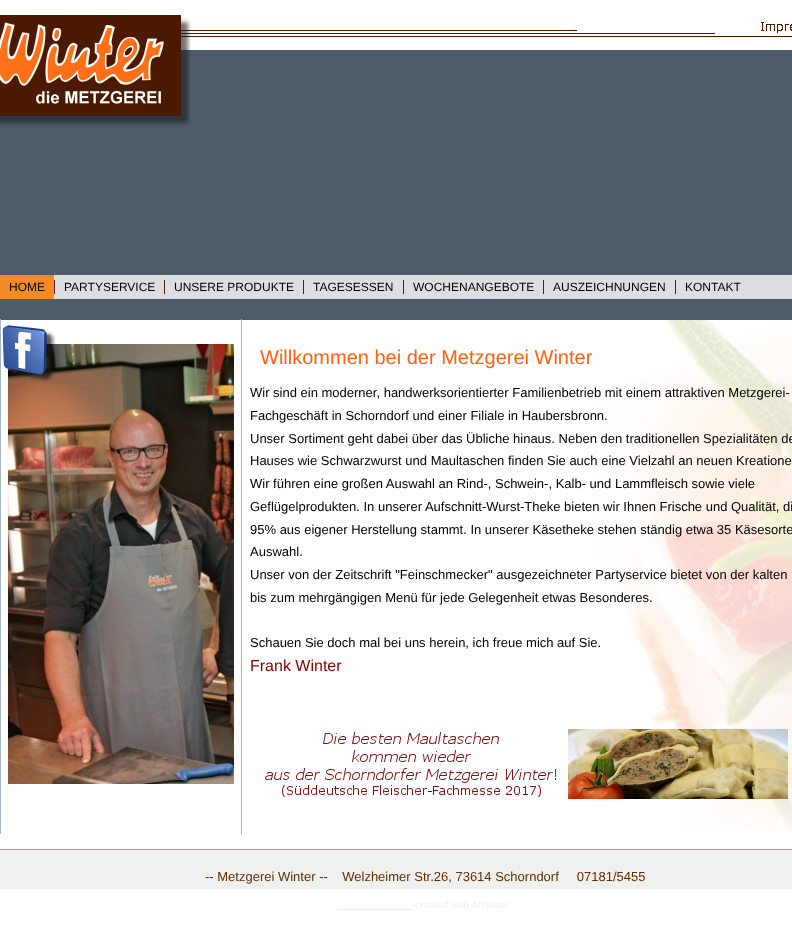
<svg xmlns="http://www.w3.org/2000/svg" width="792" height="926">
<rect width="100%" height="100%" fill="#fff"/>
<image x="1" y="24" width="791" height="808" href="media/1.png"/>
<rect y="50" width="792" height="270" fill="#4e5c69"/>
<rect x="54" y="275" width="738" height="24" fill="#dcdee1"/>
<image x="0" y="15" width="191" height="111" href="media/2.png"/>
<image x="758" y="20" width="34" height="13" href="media/3.png"/>
<rect y="275" width="54" height="24" fill="#f58924"/>
<text x="9" y="291" style="font-family:Liberation Sans;font-size:12px;fill:#000">HOME</text>
<rect x="54" y="280" width="1" height="14" fill="#5f2102"/>
<text x="64" y="291" style="font-family:Liberation Sans;font-size:12px;fill:#000">PARTYSERVICE</text>
<rect x="164" y="280" width="1" height="14" fill="#5f2102"/>
<text x="174" y="291" style="font-family:Liberation Sans;font-size:12px;fill:#000">UNSERE PRODUKTE</text>
<rect x="303" y="280" width="1" height="14" fill="#5f2102"/>
<text x="313" y="291" style="font-family:Liberation Sans;font-size:12px;fill:#000">TAGESESSEN</text>
<rect x="403" y="280" width="1" height="14" fill="#5f2102"/>
<text x="413" y="291" style="font-family:Liberation Sans;font-size:12px;fill:#000">WOCHENANGEBOTE</text>
<rect x="543" y="280" width="1" height="14" fill="#5f2102"/>
<text x="553" y="291" style="font-family:Liberation Sans;font-size:12px;fill:#000">AUSZEICHNUNGEN</text>
<rect x="675" y="280" width="1" height="14" fill="#5f2102"/>
<text x="685" y="291" style="font-family:Liberation Sans;font-size:12px;fill:#000">KONTAKT</text>
<image x="8" y="344" width="226" height="440" href="media/5.png"/>
<image x="2" y="325" width="54" height="58" href="media/4.png"/>
<rect x="241" y="319" width="1" height="515" fill="#a3b4c8"/>
<rect y="319" width="1" height="515" fill="#a3b4c8"/>
<text x="260" y="364" style="font-family:Liberation Sans;font-size:20px;fill:#fa6114">Willkommen bei der Metzgerei Winter</text>
<text x="250" y="397" style="font-family:Liberation Sans;font-size:13px;fill:#000">Wir sind ein moderner, handwerksorientierter Familienbetrieb mit einem attraktiven Metzgerei-</text>
<text x="250" y="420" style="font-family:Liberation Sans;font-size:13px;fill:#000">Fachgeschäft in Schorndorf und einer Filiale in Haubersbronn.</text>
<text x="250" y="443" style="font-family:Liberation Sans;font-size:13px;fill:#000">Unser Sortiment geht dabei über das Übliche hinaus. Neben den traditionellen Spezialitäten de</text>
<text x="250" y="465" style="font-family:Liberation Sans;font-size:13px;fill:#000">Hauses wie Schwarzwurst und Maultaschen finden Sie auch eine Vielzahl an neuen Kreatione</text>
<text x="250" y="488" style="font-family:Liberation Sans;font-size:13px;fill:#000">Wir führen eine großen Auswahl an Rind-, Schwein-, Kalb- und Lammfleisch sowie viele</text>
<text x="250" y="511" style="font-family:Liberation Sans;font-size:13px;fill:#000">Geflügelprodukten. In unserer Aufschnitt-Wurst-Theke bieten wir Ihnen Frische und Qualität, di</text>
<text x="250" y="534" style="font-family:Liberation Sans;font-size:13px;fill:#000">95% aus eigener Herstellung stammt. In unserer Käsetheke stehen ständig etwa 35 Käsesorte</text>
<text x="250" y="556" style="font-family:Liberation Sans;font-size:13px;fill:#000">Auswahl.</text>
<text x="250" y="579" style="font-family:Liberation Sans;font-size:13px;fill:#000">Unser von der Zeitschrift "Feinschmecker" ausgezeichneter Partyservice bietet von der kalten</text>
<text x="250" y="602" style="font-family:Liberation Sans;font-size:13px;fill:#000">bis zum mehrgängigen Menü für jede Gelegenheit etwas Besonderes.</text>
<text x="250" y="647" style="font-family:Liberation Sans;font-size:13px;fill:#000">Schauen Sie doch mal bei uns herein, ich freue mich auf Sie.</text>
<text x="250" y="671" style="font-family:Liberation Sans;font-size:16px;fill:#800000">Frank Winter</text>
<image x="265" y="729" width="523" height="70" href="media/6.png"/>
<rect y="850" width="792" height="39" fill="#eff0f0"/>
<rect y="849" width="792" height="1" fill="#f48722"/>
<text x="205" y="881" style="font-family:Liberation Sans;font-size:13px;fill:#632f00" xml:space="preserve">-- Metzgerei Winter --    Welzheimer Str.26, 73614 Schorndorf     07181/5455</text>
<text x="415" y="908" style="font-family:Liberation Sans;font-size:10px;fill:#eee">created with Artisteer.</text>
<rect x="339" y="909" width="73" height="1" fill="#eee"/>
</svg>
